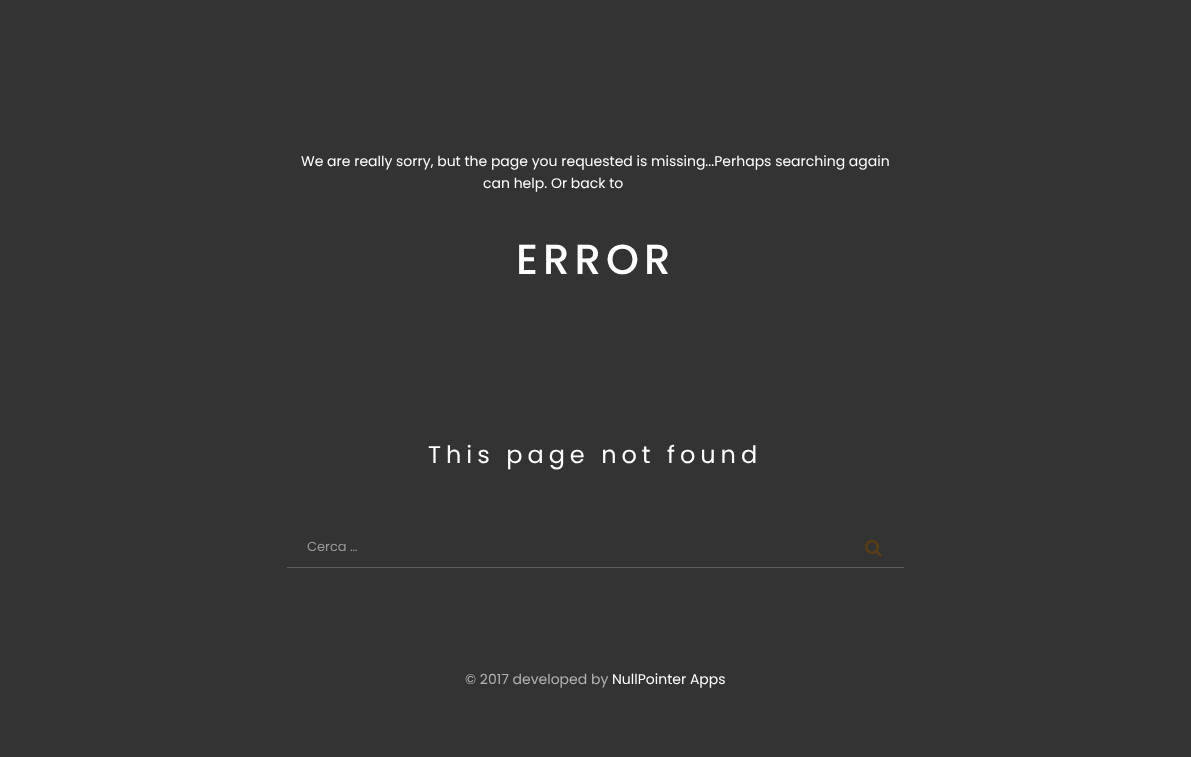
<svg xmlns="http://www.w3.org/2000/svg" width="1191" height="757">
<rect width="100%" height="100%" fill="#333"/>
<text x="301" y="166" style="font-family:Poppins;font-size:14px;fill:#fff">We are really sorry, but the page you requested is missing...Perhaps searching again</text>
<text x="483" y="188" style="font-family:Poppins;font-size:14px;fill:#fff">can help. Or back to</text>
<text x="516" y="274" style="font-family:Poppins;font-size:42px;font-weight:500;letter-spacing:5px;fill:#fff">ERROR</text>
<text x="428" y="463" style="font-family:Poppins;font-size:24px;letter-spacing:5px;fill:#fff">This page not found</text>
<rect x="287" y="567" width="617" height="1" fill="#5c5c5c"/>
<text x="307" y="551" style="font-family:Poppins;font-size:13px;fill:#999">Cerca …</text>
<image x="865" y="540" width="17" height="17" href="media/1.png"/>
<text x="465" y="684" style="font-family:Poppins;font-size:14px;fill:#b2b2b2">© 2017 developed by</text>
<text x="612" y="684" style="font-family:Poppins;font-size:14px;fill:#fff">NullPointer Apps</text>
</svg>
